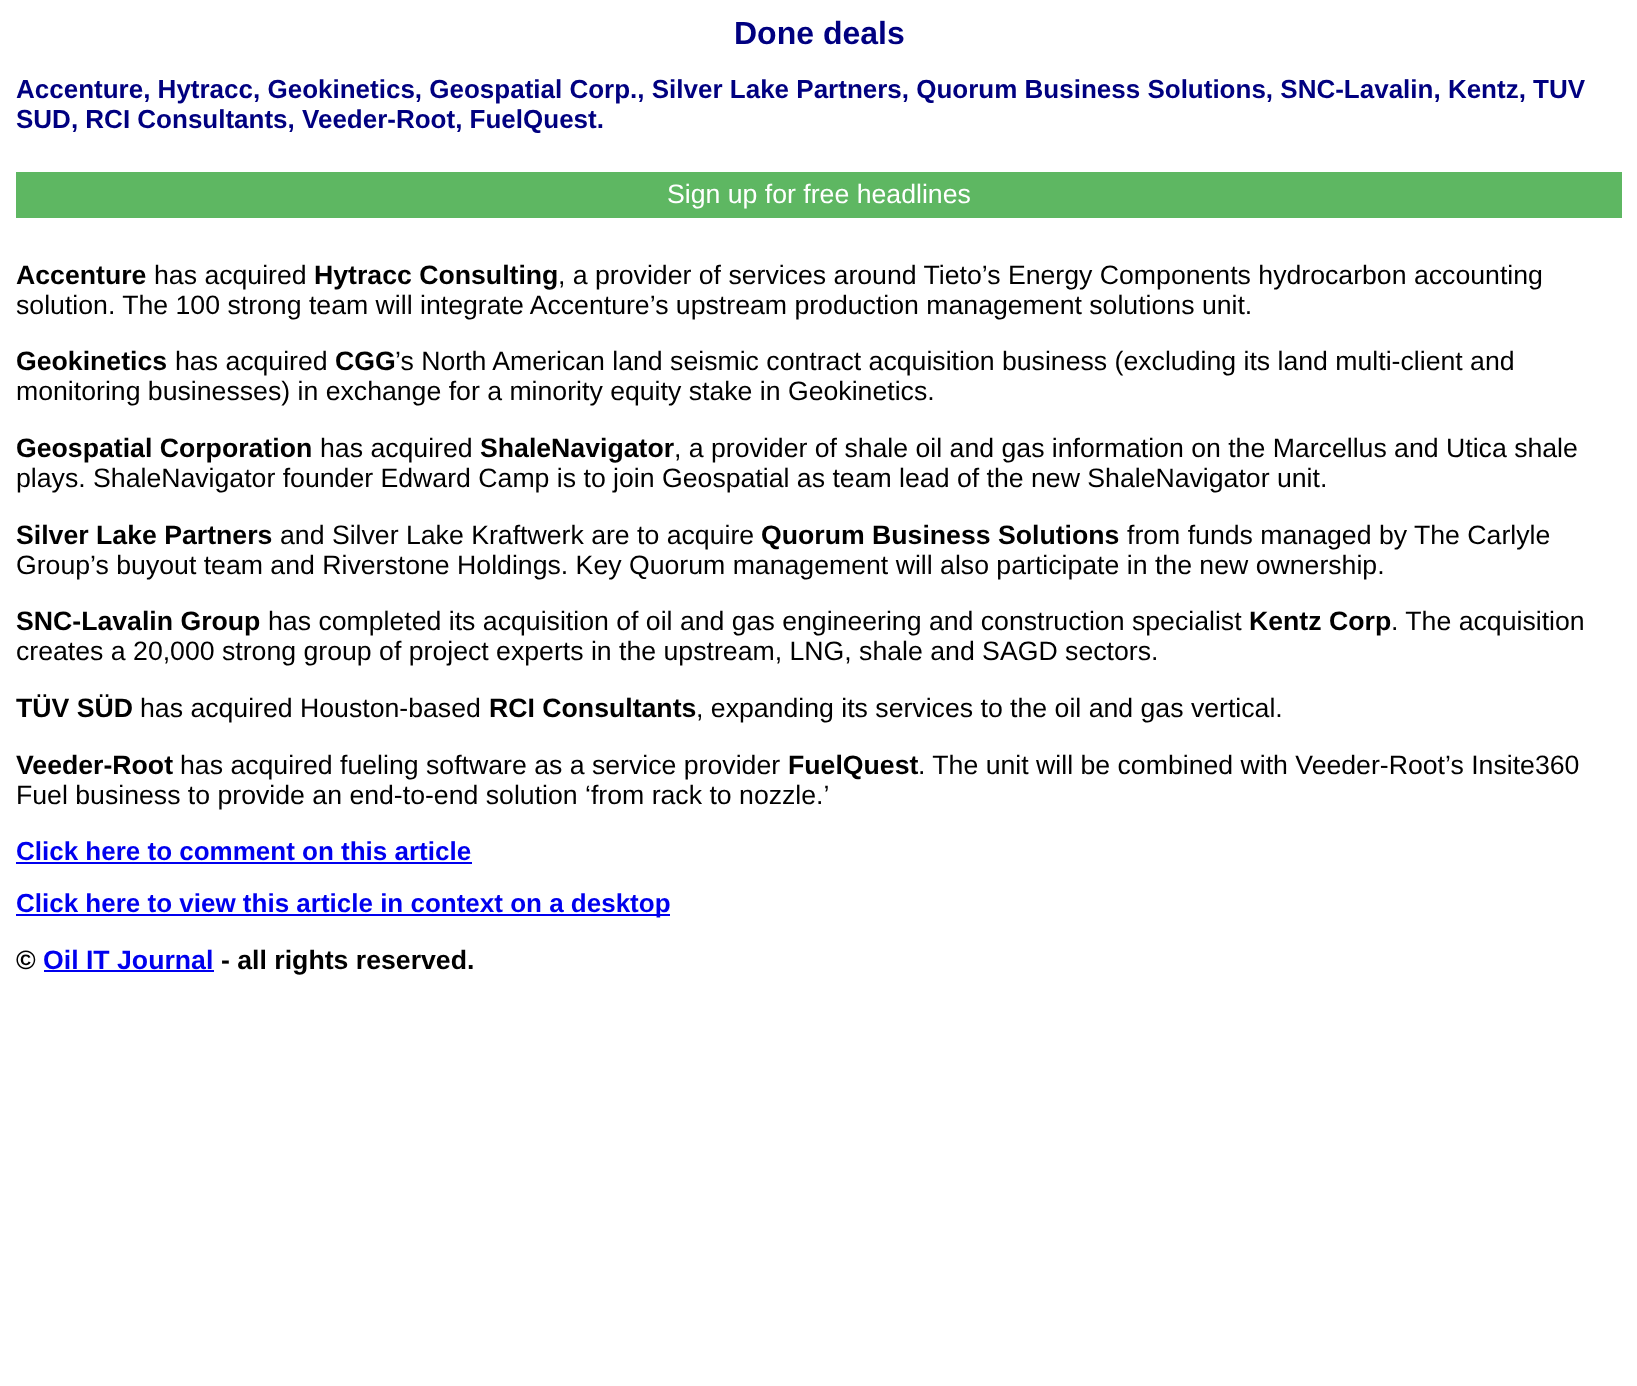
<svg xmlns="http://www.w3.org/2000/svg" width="1637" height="1386">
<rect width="100%" height="100%" fill="#fff"/>
<text x="734" y="44" style="font-family:Liberation Sans;font-size:32px;font-weight:bold;fill:#000080">Done deals</text>
<text x="16" y="98" style="font-family:Liberation Sans;font-size:26px;font-weight:bold;fill:#000080">Accenture, Hytracc, Geokinetics, Geospatial Corp., Silver Lake Partners, Quorum Business Solutions, SNC-Lavalin, Kentz, TUV</text>
<text x="16" y="128" style="font-family:Liberation Sans;font-size:26px;font-weight:bold;fill:#000080">SUD, RCI Consultants, Veeder-Root, FuelQuest.</text>
<rect x="16" y="172" width="1606" height="46" fill="#5eb762"/>
<text x="667" y="203" style="font-family:Liberation Sans;font-size:26.67px;fill:#fff">Sign up for free headlines</text>
<text x="16" y="284" style="font-family:Liberation Sans;font-size:26.67px;font-weight:bold;fill:#000">Accenture</text>
<text x="154" y="284" style="font-family:Liberation Sans;font-size:26.67px;fill:#000">has acquired</text>
<text x="314" y="284" style="font-family:Liberation Sans;font-size:26.67px;font-weight:bold;fill:#000">Hytracc Consulting</text>
<text x="558" y="284" style="font-family:Liberation Sans;font-size:26.67px;fill:#000">, a provider of services around Tieto’s Energy Components hydrocarbon accounting</text>
<text x="16" y="314" style="font-family:Liberation Sans;font-size:26.67px;fill:#000">solution. The 100 strong team will integrate Accenture’s upstream production management solutions unit.</text>
<text x="16" y="370" style="font-family:Liberation Sans;font-size:26.67px;font-weight:bold;fill:#000">Geokinetics</text>
<text x="175" y="370" style="font-family:Liberation Sans;font-size:26.67px;fill:#000">has acquired</text>
<text x="335" y="370" style="font-family:Liberation Sans;font-size:26.67px;font-weight:bold;fill:#000">CGG</text>
<text x="395" y="370" style="font-family:Liberation Sans;font-size:26.67px;fill:#000">’s North American land seismic contract acquisition business (excluding its land multi-client and</text>
<text x="16" y="400" style="font-family:Liberation Sans;font-size:26.67px;fill:#000">monitoring businesses) in exchange for a minority equity stake in Geokinetics.</text>
<text x="16" y="457" style="font-family:Liberation Sans;font-size:26.67px;font-weight:bold;fill:#000">Geospatial Corporation</text>
<text x="320" y="457" style="font-family:Liberation Sans;font-size:26.67px;fill:#000">has acquired</text>
<text x="480" y="457" style="font-family:Liberation Sans;font-size:26.67px;font-weight:bold;fill:#000">ShaleNavigator</text>
<text x="674" y="457" style="font-family:Liberation Sans;font-size:26.67px;fill:#000">, a provider of shale oil and gas information on the Marcellus and Utica shale</text>
<text x="16" y="487" style="font-family:Liberation Sans;font-size:26.67px;fill:#000">plays. ShaleNavigator founder Edward Camp is to join Geospatial as team lead of the new ShaleNavigator unit.</text>
<text x="16" y="544" style="font-family:Liberation Sans;font-size:26.67px;font-weight:bold;fill:#000">Silver Lake Partners</text>
<text x="280" y="544" style="font-family:Liberation Sans;font-size:26.67px;fill:#000">and Silver Lake Kraftwerk are to acquire</text>
<text x="761" y="544" style="font-family:Liberation Sans;font-size:26.67px;font-weight:bold;fill:#000">Quorum Business Solutions</text>
<text x="1127" y="544" style="font-family:Liberation Sans;font-size:26.67px;fill:#000">from funds managed by The Carlyle</text>
<text x="16" y="574" style="font-family:Liberation Sans;font-size:26.67px;fill:#000">Group’s buyout team and Riverstone Holdings. Key Quorum management will also participate in the new ownership.</text>
<text x="16" y="630" style="font-family:Liberation Sans;font-size:26.67px;font-weight:bold;fill:#000">SNC-Lavalin Group</text>
<text x="268" y="630" style="font-family:Liberation Sans;font-size:26.67px;fill:#000">has completed its acquisition of oil and gas engineering and construction specialist</text>
<text x="1249" y="630" style="font-family:Liberation Sans;font-size:26.67px;font-weight:bold;fill:#000">Kentz Corp</text>
<text x="1391" y="630" style="font-family:Liberation Sans;font-size:26.67px;fill:#000">. The acquisition</text>
<text x="16" y="660" style="font-family:Liberation Sans;font-size:26.67px;fill:#000">creates a 20,000 strong group of project experts in the upstream, LNG, shale and SAGD sectors.</text>
<text x="16" y="717" style="font-family:Liberation Sans;font-size:26.67px;font-weight:bold;fill:#000">TÜV SÜD</text>
<text x="140" y="717" style="font-family:Liberation Sans;font-size:26.67px;fill:#000">has acquired Houston-based</text>
<text x="489" y="717" style="font-family:Liberation Sans;font-size:26.67px;font-weight:bold;fill:#000">RCI Consultants</text>
<text x="696" y="717" style="font-family:Liberation Sans;font-size:26.67px;fill:#000">, expanding its services to the oil and gas vertical.</text>
<text x="16" y="774" style="font-family:Liberation Sans;font-size:26.67px;font-weight:bold;fill:#000">Veeder-Root</text>
<text x="180" y="774" style="font-family:Liberation Sans;font-size:26.67px;fill:#000">has acquired fueling software as a service provider</text>
<text x="788" y="774" style="font-family:Liberation Sans;font-size:26.67px;font-weight:bold;fill:#000">FuelQuest</text>
<text x="918" y="774" style="font-family:Liberation Sans;font-size:26.67px;fill:#000">. The unit will be combined with Veeder-Root’s Insite360</text>
<text x="16" y="804" style="font-family:Liberation Sans;font-size:26.67px;fill:#000">Fuel business to provide an end-to-end solution ‘from rack to nozzle.’</text>
<text x="16" y="860" style="font-family:Liberation Sans;font-size:26px;font-weight:bold;fill:#00e">Click here to comment on this article</text>
<rect x="16" y="862" width="456" height="2" fill="#00e"/>
<rect x="16" y="914" width="654" height="2" fill="#00e"/>
<text x="16" y="912" style="font-family:Liberation Sans;font-size:26px;font-weight:bold;fill:#00e">Click here to view this article in context on a desktop</text>
<text x="16" y="969" style="font-family:Liberation Sans;font-size:26.67px;font-weight:bold;fill:#000">©</text>
<text x="43" y="969" style="font-family:Liberation Sans;font-size:26.67px;font-weight:bold;fill:#00e">Oil IT Journal</text>
<rect x="44" y="970" width="170" height="2" fill="#00e"/>
<text x="221" y="969" style="font-family:Liberation Sans;font-size:26.67px;font-weight:bold;fill:#000">- all rights reserved.</text>
</svg>
